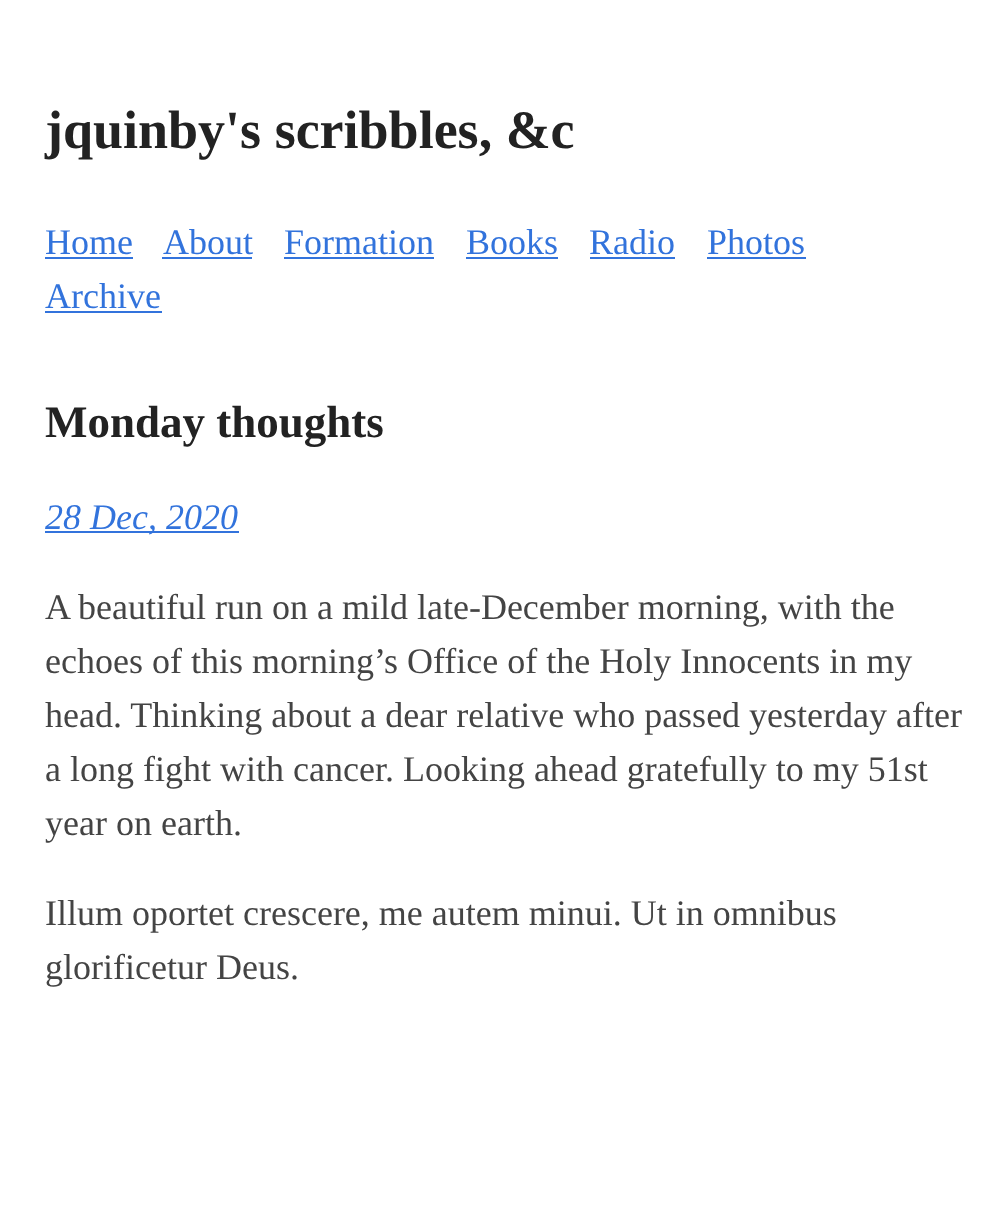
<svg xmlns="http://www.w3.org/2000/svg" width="1008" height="1223">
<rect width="100%" height="100%" fill="#fff"/>
<text x="45" y="148" style="font-family:Liberation Serif;font-size:54px;font-weight:bold;fill:#222">jquinby's scribbles, &amp;c</text>
<text x="45" y="254" style="font-family:Liberation Serif;font-size:36px;fill:#3273dc">Home</text>
<rect x="45" y="257" width="88" height="2" fill="#3273dc"/>
<text x="163" y="254" style="font-family:Liberation Serif;font-size:36px;fill:#3273dc">About</text>
<rect x="162" y="257" width="90" height="2" fill="#3273dc"/>
<text x="284" y="254" style="font-family:Liberation Serif;font-size:36px;fill:#3273dc">Formation</text>
<rect x="284" y="257" width="150" height="2" fill="#3273dc"/>
<text x="466" y="254" style="font-family:Liberation Serif;font-size:36px;fill:#3273dc">Books</text>
<rect x="466" y="257" width="92" height="2" fill="#3273dc"/>
<text x="589" y="254" style="font-family:Liberation Serif;font-size:36px;fill:#3273dc">Radio</text>
<rect x="590" y="257" width="85" height="2" fill="#3273dc"/>
<text x="707" y="254" style="font-family:Liberation Serif;font-size:36px;fill:#3273dc">Photos</text>
<rect x="707" y="257" width="99" height="2" fill="#3273dc"/>
<text x="45" y="308" style="font-family:Liberation Serif;font-size:36px;fill:#3273dc">Archive</text>
<rect x="45" y="311" width="117" height="2" fill="#3273dc"/>
<text x="45" y="437" style="font-family:Liberation Serif;font-size:45px;font-weight:bold;fill:#222">Monday thoughts</text>
<rect x="45" y="531" width="194" height="2" fill="#3273dc"/>
<text x="45" y="529" style="font-family:Liberation Serif;font-size:36px;font-style:italic;fill:#3273dc">28 Dec, 2020</text>
<text x="45" y="619" style="font-family:Liberation Serif;font-size:36px;fill:#444">A beautiful run on a mild late-December morning, with the</text>
<text x="45" y="673" style="font-family:Liberation Serif;font-size:36px;fill:#444">echoes of this morning’s Office of the Holy Innocents in my</text>
<text x="45" y="727" style="font-family:Liberation Serif;font-size:36px;fill:#444">head. Thinking about a dear relative who passed yesterday after</text>
<text x="45" y="781" style="font-family:Liberation Serif;font-size:36px;fill:#444">a long fight with cancer. Looking ahead gratefully to my 51st</text>
<text x="45" y="835" style="font-family:Liberation Serif;font-size:36px;fill:#444">year on earth.</text>
<text x="45" y="925" style="font-family:Liberation Serif;font-size:36px;fill:#444">Illum oportet crescere, me autem minui. Ut in omnibus</text>
<text x="45" y="979" style="font-family:Liberation Serif;font-size:36px;fill:#444">glorificetur Deus.</text>
</svg>
